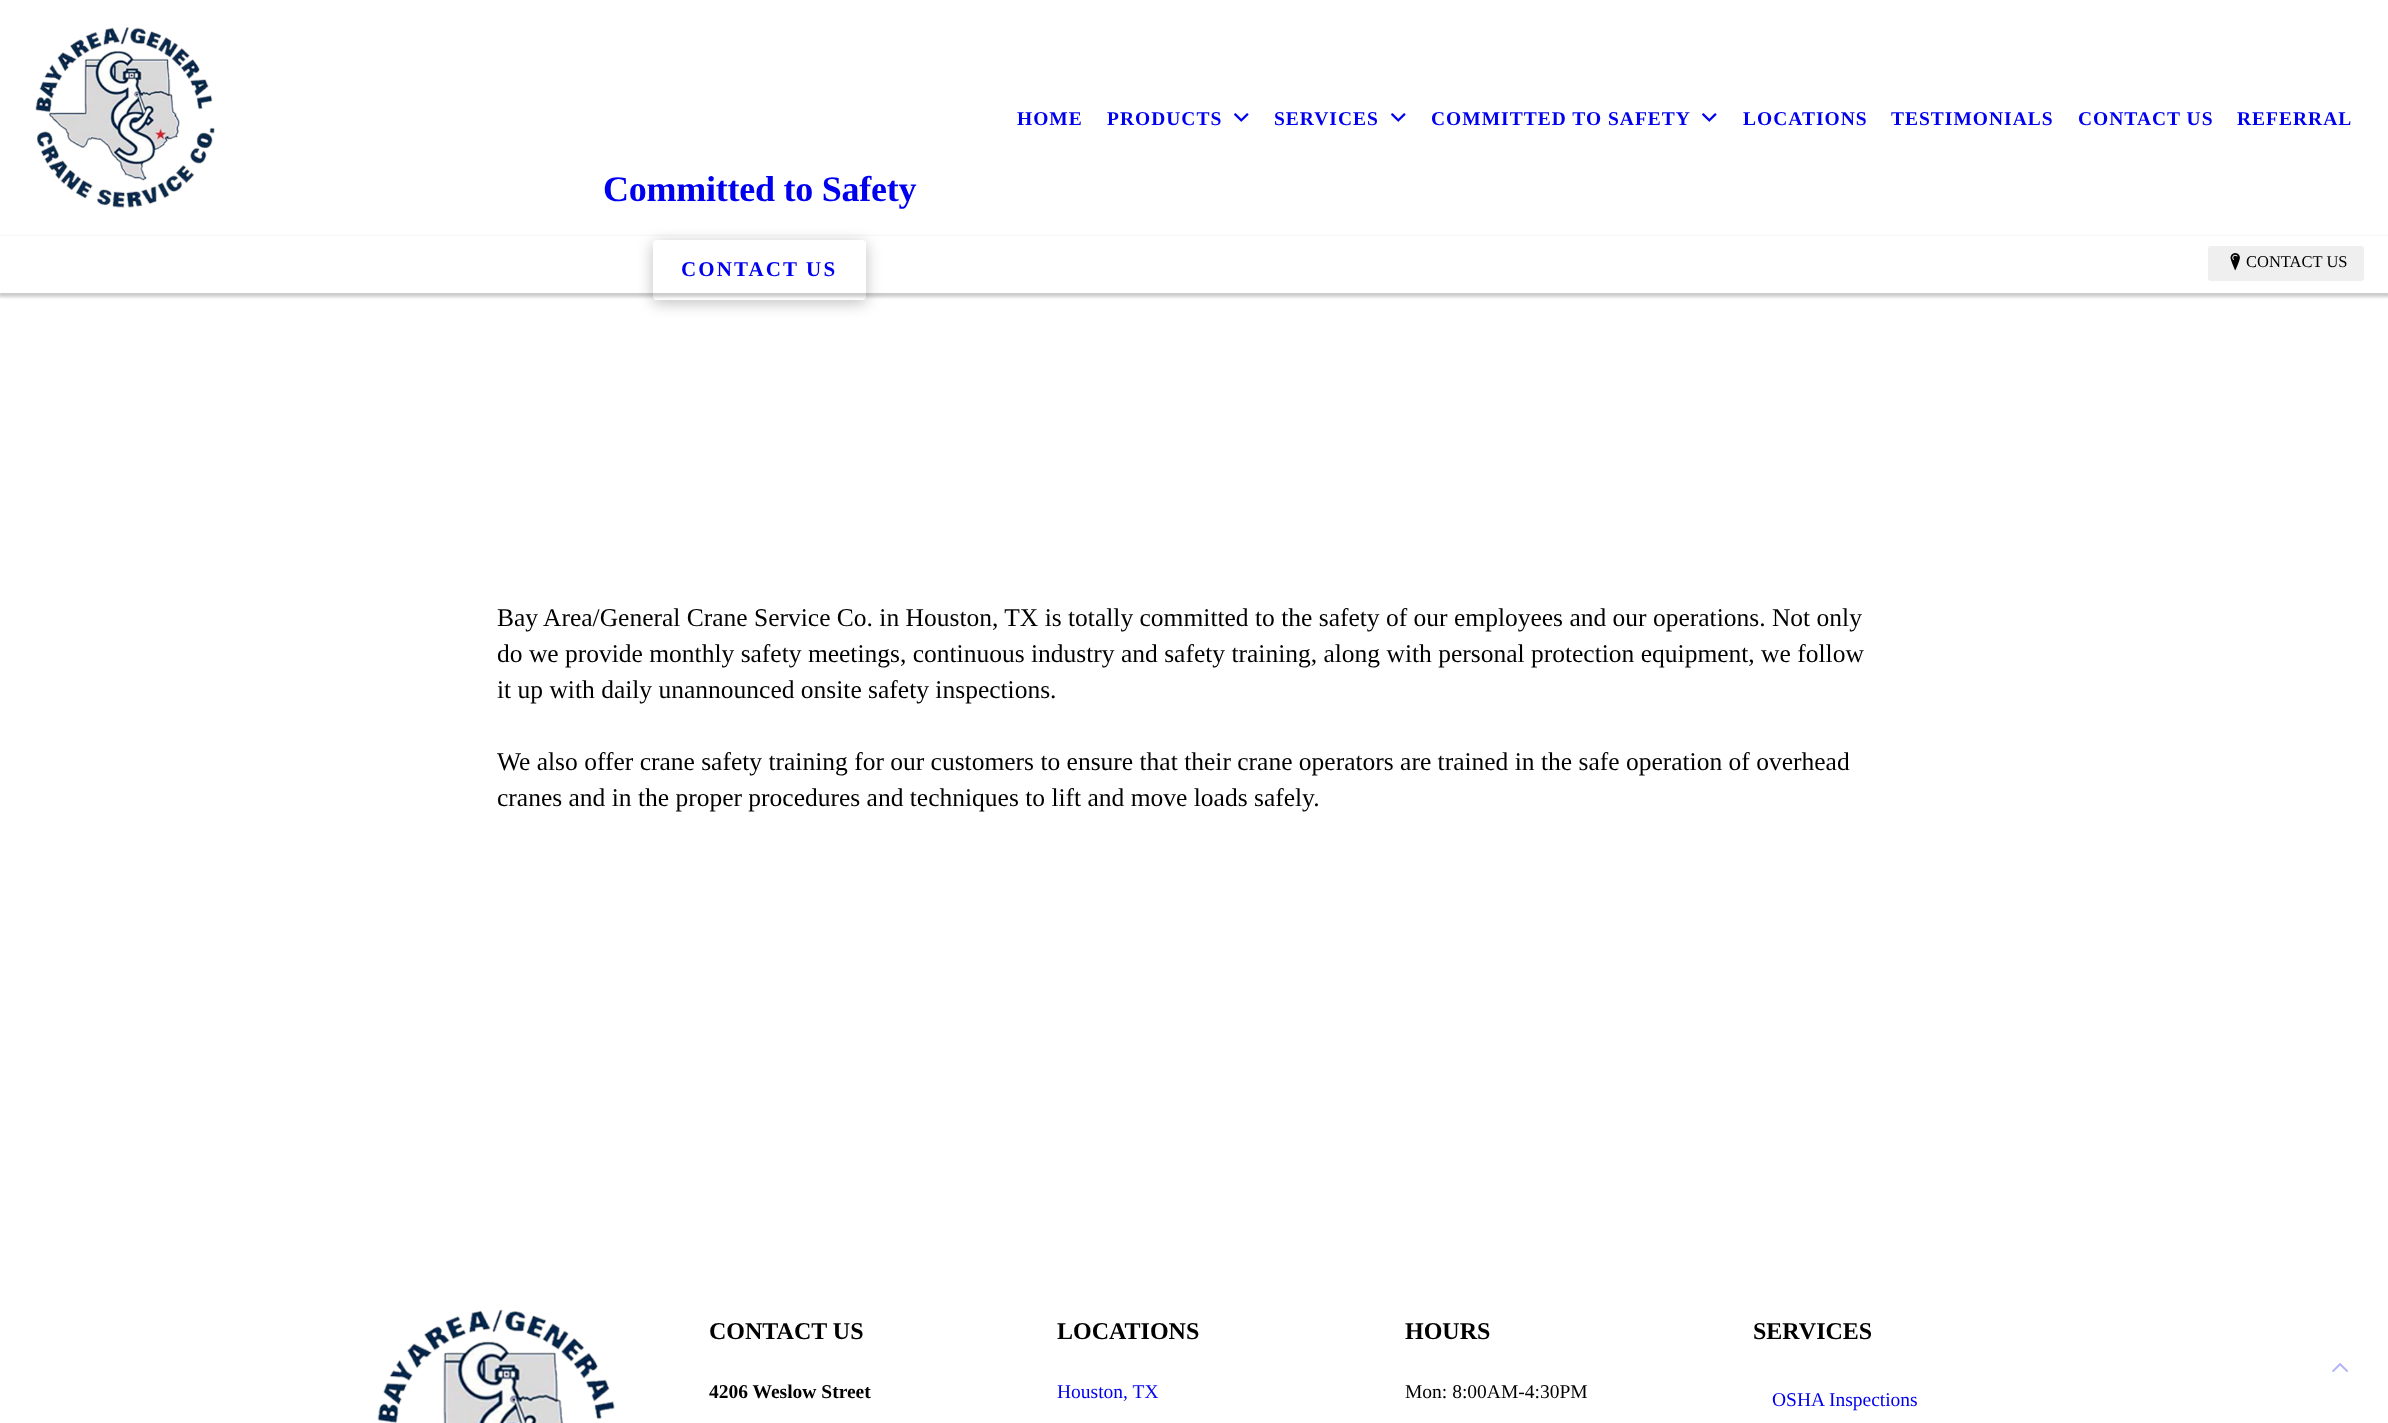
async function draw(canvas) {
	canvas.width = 2388;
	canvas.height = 1423;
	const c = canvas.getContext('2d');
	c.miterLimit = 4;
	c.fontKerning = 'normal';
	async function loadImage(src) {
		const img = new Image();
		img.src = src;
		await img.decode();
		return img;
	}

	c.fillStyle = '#fff';
	c.fillRect(0, 0, 2388, 1423);
	c.drawImage(await loadImage('img1.png'), 35, 27, 180, 181);
	c.letterSpacing = '1px';
	c.font = 'bold 19.5px Liberation Serif';
	c.fillStyle = '#00e';
	c.fillText('HOME', 1017, 125);
	c.fillText('PRODUCTS', 1107, 125);
	c.font = 'bold 18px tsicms';
	c.fillText('-', 1232, 125);
	c.font = 'bold 19.5px Liberation Serif';
	c.fillText('SERVICES', 1274, 125);
	c.font = 'bold 18px tsicms';
	c.fillText('-', 1389, 125);
	c.font = 'bold 19.5px Liberation Serif';
	c.fillText('COMMITTED TO SAFETY', 1431, 125);
	c.font = 'bold 18px tsicms';
	c.fillText('-', 1700, 125);
	c.font = 'bold 19.5px Liberation Serif';
	for (const [text, x, y] of [
		['LOCATIONS', 1743, 125],
		['TESTIMONIALS', 1891, 125],
		['CONTACT US', 2078, 125],
		['REFERRAL', 2237, 125],
	]) {
		c.fillText(text, x, y);
	}
	c.save();
	c.beginPath();
	c.moveTo(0, 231);
	c.lineTo(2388, 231);
	c.lineTo(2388, 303);
	c.lineTo(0, 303);
	c.closePath();
	c.moveTo(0, 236);
	c.lineTo(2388, 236);
	c.lineTo(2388, 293);
	c.lineTo(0, 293);
	c.closePath();
	c.clip('evenodd');
	c.fillStyle = '#00000033';
	c.filter = 'blur(1.5px)';
	c.beginPath();
	c.rect(-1, 237, 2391, 60);
	c.fill();
	c.filter = 'none';
	c.restore();
	c.fillStyle = '#efefef';
	c.beginPath();
	c.roundRect(2208, 246, 156, 35, 3);
	c.fill();
	c.drawImage(await loadImage('img2.png'), 2230, 253, 10, 18);
	c.letterSpacing = '0px';
	c.font = '16.5px Liberation Serif';
	c.fillStyle = '#000';
	c.fillText('CONTACT US', 2246, 267);
	c.letterSpacing = '-0.25px';
	c.font = 'bold 36px Liberation Serif';
	c.fillStyle = '#00e';
	c.fillText('Committed to Safety', 603, 201);
	c.save();
	c.beginPath();
	c.moveTo(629, 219);
	c.lineTo(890, 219);
	c.lineTo(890, 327);
	c.lineTo(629, 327);
	c.closePath();
	c.moveTo(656, 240);
	c.lineTo(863, 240);
	c.bezierCurveTo(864.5, 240, 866, 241.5, 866, 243);
	c.lineTo(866, 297);
	c.bezierCurveTo(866, 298.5, 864.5, 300, 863, 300);
	c.lineTo(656, 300);
	c.bezierCurveTo(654.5, 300, 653, 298.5, 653, 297);
	c.lineTo(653, 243);
	c.bezierCurveTo(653, 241.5, 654.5, 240, 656, 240);
	c.closePath();
	c.clip('evenodd');
	c.fillStyle = '#00000040';
	c.filter = 'blur(7.5px)';
	c.beginPath();
	c.roundRect(653, 243, 213, 60, 3);
	c.fill();
	c.filter = 'none';
	c.restore();
	c.letterSpacing = '2.1px';
	c.font = 'bold 21px Liberation Serif';
	c.fillText('CONTACT US', 681, 276);
	c.letterSpacing = '0px';
	c.font = '25.5px Liberation Serif';
	c.fillStyle = '#000';
	for (const [text, x, y] of [
		['Bay Area/General Crane Service Co. in Houston, TX is totally committed to the safety of our employees and our operations. Not only', 497, 626],
		['do we provide monthly safety meetings, continuous industry and safety training, along with personal protection equipment, we follow', 497, 662],
		['it up with daily unannounced onsite safety inspections.', 497, 698],
		['We also offer crane safety training for our customers to ensure that their crane operators are trained in the safe operation of overhead', 497, 770],
		['cranes and in the proper procedures and techniques to lift and move loads safely.', 497, 806],
	]) {
		c.fillText(text, x, y);
	}
	c.drawImage(await loadImage('img3.png'), 377, 1309, 238, 114);
	c.font = 'bold 24px Liberation Serif';
	c.fillText('CONTACT US', 709, 1339);
	c.font = 'bold 19.5px Liberation Serif';
	c.fillText('4206 Weslow Street', 709, 1398);
	c.font = 'bold 24px Liberation Serif';
	c.fillText('LOCATIONS', 1057, 1339);
	c.font = '19.5px Liberation Serif';
	c.fillStyle = '#00e';
	c.fillText('Houston, TX', 1057, 1398);
	c.font = 'bold 24px Liberation Serif';
	c.fillStyle = '#000';
	c.fillText('HOURS', 1405, 1339);
	c.font = '19.5px Liberation Serif';
	c.fillText('Mon: 8:00AM-4:30PM', 1405, 1398);
	c.font = 'bold 24px Liberation Serif';
	c.fillText('SERVICES', 1753, 1339);
	c.font = '19.5px Liberation Serif';
	c.fillStyle = '#00e';
	c.fillText('OSHA Inspections', 1772, 1406);
	c.font = '21px tsicms';
	c.fillStyle = '#b3b3fa';
	c.fillText('+', 2332, 1376);
}

draw(document.querySelector('canvas'));
